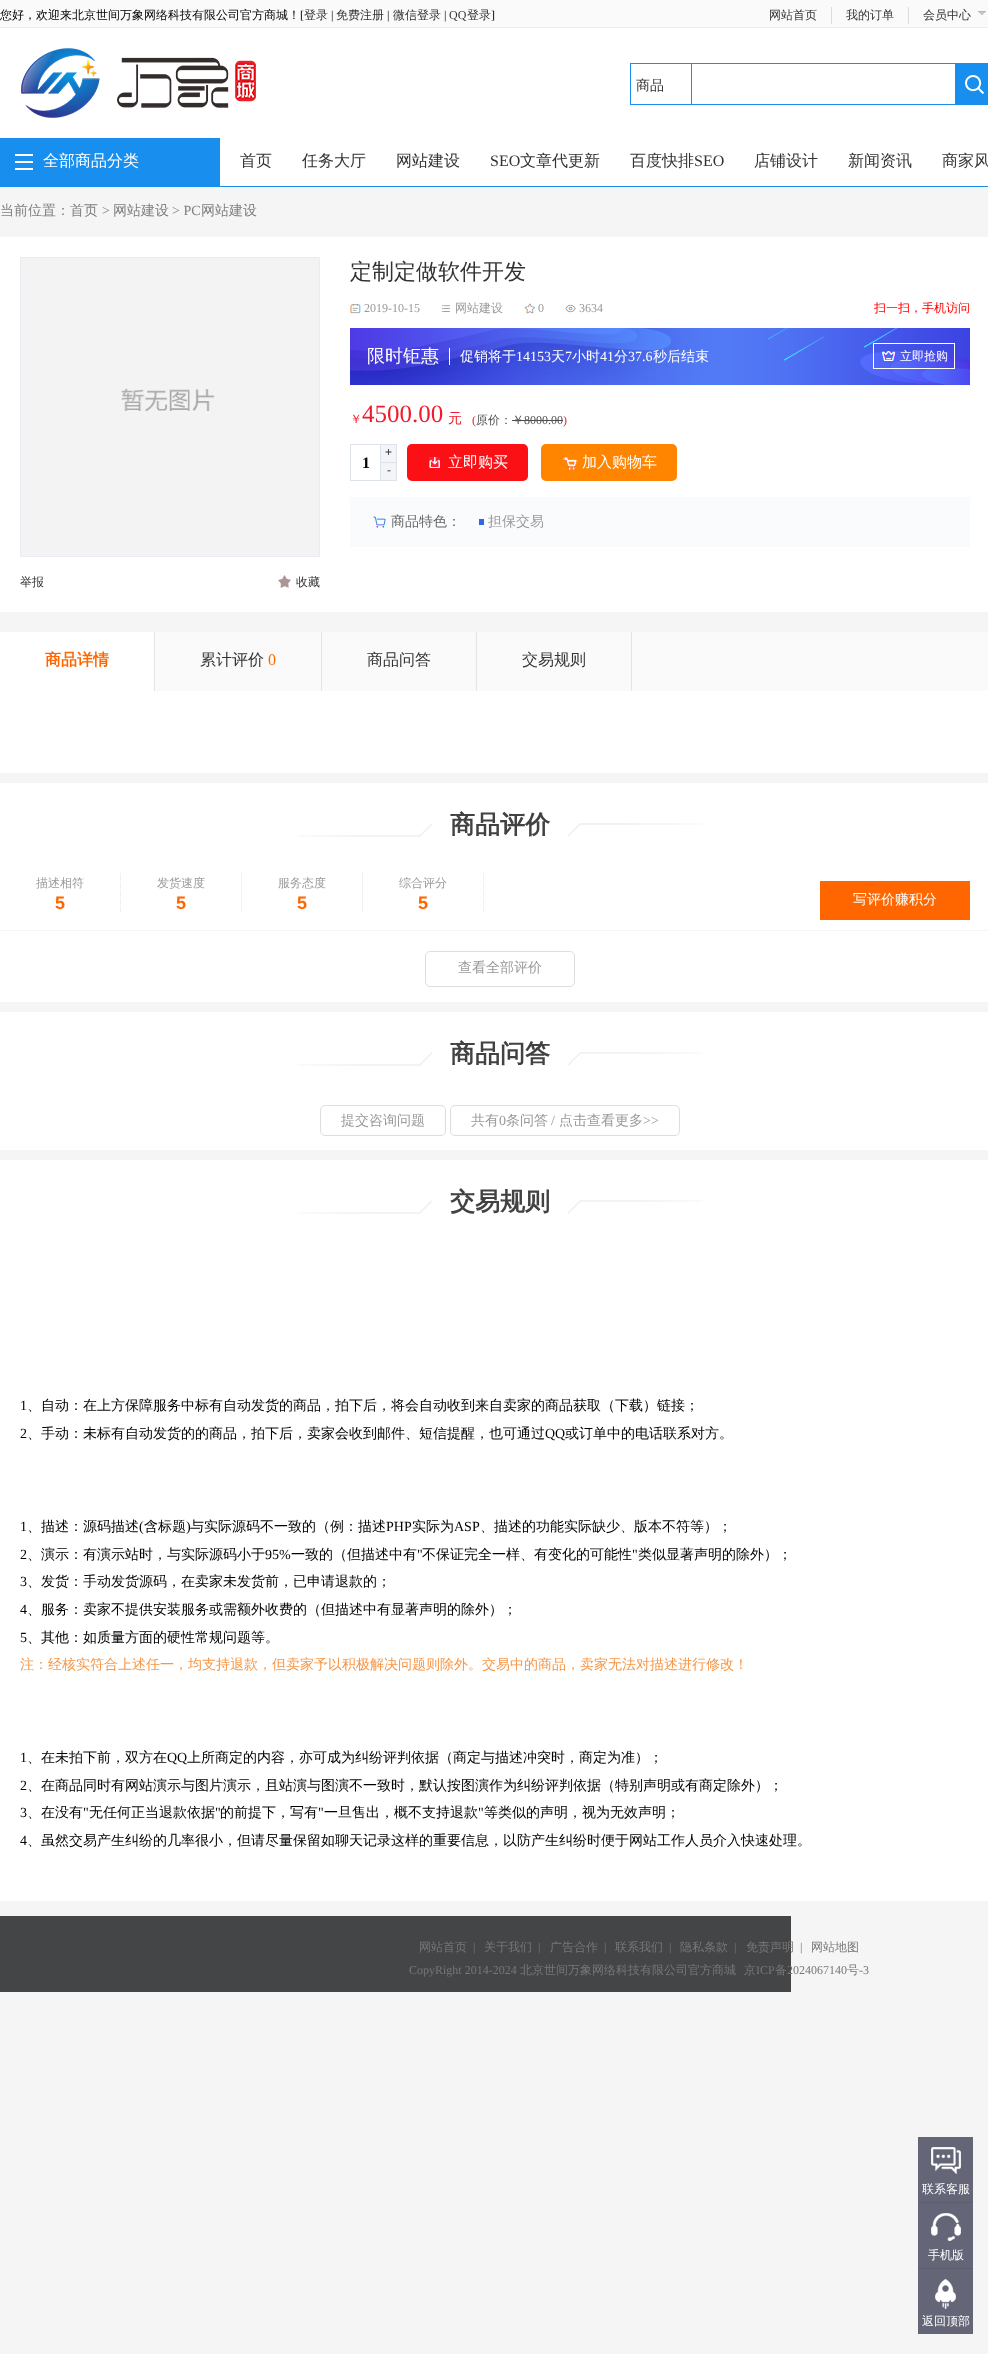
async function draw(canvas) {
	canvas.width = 988;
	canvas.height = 2354;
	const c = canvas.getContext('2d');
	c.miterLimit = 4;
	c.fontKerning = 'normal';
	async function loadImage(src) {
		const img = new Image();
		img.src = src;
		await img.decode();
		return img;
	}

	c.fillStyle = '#f5f5f5';
	c.fillRect(0, 0, 988, 2354);
	c.fillStyle = '#fafafa';
	c.fillRect(0, 0, 988, 27);
	c.fillStyle = '#eee';
	c.fillRect(0, 27, 988, 1);
	c.font = '500 12px WenQuanYi Zen Hei';
	c.fillStyle = '#000';
	c.fillText('您好，欢迎来北京世间万象网络科技有限公司官方商城！', 0, 19);
	c.font = '12px Liberation Serif';
	c.fillText('[', 300, 19);
	c.font = '500 12px WenQuanYi Zen Hei';
	c.fillStyle = '#333';
	c.fillText('登录', 304, 19);
	c.font = '12px Liberation Serif';
	c.fillStyle = '#000';
	c.fillText('|', 331, 19);
	c.font = '500 12px WenQuanYi Zen Hei';
	c.fillStyle = '#333';
	c.fillText('免费注册', 336, 19);
	c.font = '12px Liberation Serif';
	c.fillStyle = '#000';
	c.fillText('|', 387, 19);
	c.font = '500 12px WenQuanYi Zen Hei';
	c.fillStyle = '#333';
	c.fillText('微信登录', 393, 19);
	c.font = '12px Liberation Serif';
	c.fillStyle = '#000';
	c.fillText('|', 444, 19);
	c.fillStyle = '#333';
	c.fillText('QQ', 449, 19);
	c.font = '500 12px WenQuanYi Zen Hei';
	c.fillText('登录', 467, 19);
	c.font = '12px Liberation Serif';
	c.fillStyle = '#000';
	c.fillText(']', 491, 19);
	c.fillStyle = '#ddd';
	c.fillRect(831, 7, 1, 17);
	c.font = '500 12px WenQuanYi Zen Hei';
	c.fillStyle = '#333';
	c.fillText('网站首页', 769, 19);
	c.fillStyle = '#ddd';
	c.fillRect(908, 7, 1, 17);
	c.fillStyle = '#333';
	c.fillText('我的订单', 846, 19);
	c.drawImage(await loadImage('img1.png'), 978, 11, 8, 4);
	c.fillText('会员中心', 923, 19);
	c.fillStyle = '#fff';
	c.fillRect(0, 28, 988, 158);
	c.fillStyle = '#188eee';
	c.fillRect(0, 186, 988, 1);
	c.drawImage(await loadImage('img2.png'), 21, 48, 235, 70);
	c.strokeStyle = '#188eee';
	c.strokeRect(630.5, 63.5, 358, 41);
	c.fillRect(691, 64, 1, 40);
	c.font = '500 14px WenQuanYi Zen Hei';
	c.fillStyle = '#333';
	c.fillText('商品', 636, 90);
	c.drawImage(await loadImage('img3.png'), 955, 64, 33, 40);
	c.fillStyle = '#188eee';
	c.fillRect(0, 138, 220, 48);
	c.drawImage(await loadImage('img4.png'), 15, 154, 18, 16);
	c.font = '500 16px WenQuanYi Zen Hei';
	c.fillStyle = '#fff';
	c.fillText('全部商品分类', 43, 166);
	c.fillStyle = '#333';
	for (const [text, x, y] of [
		['首页', 240, 166],
		['任务大厅', 302, 166],
		['网站建设', 396, 166],
	]) {
		c.fillText(text, x, y);
	}
	c.font = '16px Liberation Serif';
	c.fillText('SEO', 490, 166);
	c.font = '500 16px WenQuanYi Zen Hei';
	c.fillText('文章代更新', 520, 166);
	c.fillText('百度快排', 630, 166);
	c.font = '16px Liberation Serif';
	c.fillText('SEO', 694, 166);
	c.font = '500 16px WenQuanYi Zen Hei';
	for (const [text, x, y] of [
		['店铺设计', 754, 166],
		['新闻资讯', 848, 166],
		['商家风', 942, 166],
	]) {
		c.fillText(text, x, y);
	}
	c.font = '500 14px WenQuanYi Zen Hei';
	c.fillStyle = '#7f7f7f';
	c.fillText('当前位置：首页', 0, 215);
	c.font = '14px Liberation Serif';
	c.fillText('>', 102, 215);
	c.font = '500 14px WenQuanYi Zen Hei';
	c.fillText('网站建设', 113, 215);
	c.font = '14px Liberation Serif';
	c.fillText('> PC', 172, 215);
	c.font = '500 14px WenQuanYi Zen Hei';
	c.fillText('网站建设', 201, 215);
	c.fillStyle = '#fff';
	c.fillRect(0, 237, 988, 375);
	c.font = '500 22px WenQuanYi Zen Hei';
	c.fillStyle = '#333';
	c.fillText('定制定做软件开发', 350, 279);
	c.drawImage(await loadImage('img5.png'), 350, 303, 11, 11);
	c.font = '12px Liberation Serif';
	c.fillStyle = '#999';
	c.fillText('2019-10-15', 364, 312);
	c.drawImage(await loadImage('img6.png'), 441, 305, 9, 7);
	c.font = '500 12px WenQuanYi Zen Hei';
	c.fillText('网站建设', 455, 312);
	c.drawImage(await loadImage('img7.png'), 524, 303, 11, 11);
	c.font = '12px Liberation Serif';
	c.fillText('0', 538, 312);
	c.drawImage(await loadImage('img8.png'), 565, 304, 11, 9);
	c.fillText('3634', 579, 312);
	c.font = '500 12px WenQuanYi Zen Hei';
	c.fillStyle = '#f00';
	c.fillText('扫一扫，手机访问', 874, 312);
	c.drawImage(await loadImage('img9.png'), 350, 328, 620, 57);
	c.font = '500 18px WenQuanYi Zen Hei';
	c.fillStyle = '#fff';
	c.fillText('限时钜惠', 367, 362);
	c.fillRect(449, 348, 1, 17);
	c.font = '500 14px WenQuanYi Zen Hei';
	c.fillText('促销将于', 460, 361);
	c.font = '14px Liberation Serif';
	c.fillText('14153', 516, 361);
	c.font = '500 14px WenQuanYi Zen Hei';
	c.fillText('天', 551, 361);
	c.font = '14px Liberation Serif';
	c.fillText('7', 565, 361);
	c.font = '500 14px WenQuanYi Zen Hei';
	c.fillText('小时', 572, 361);
	c.font = '14px Liberation Serif';
	c.fillText('41', 600, 361);
	c.font = '500 14px WenQuanYi Zen Hei';
	c.fillText('分', 614, 361);
	c.font = '14px Liberation Serif';
	c.fillText('37.6', 628, 361);
	c.font = '500 14px WenQuanYi Zen Hei';
	c.fillText('秒后结束', 653, 361);
	c.drawImage(await loadImage('img10.png'), 882, 351, 14, 10);
	c.strokeStyle = '#fff';
	c.strokeRect(873.5, 343.5, 81, 25);
	c.font = '500 12px WenQuanYi Zen Hei';
	c.fillText('立即抢购', 900, 360);
	c.fillStyle = '#ef1c2b';
	c.fillText('￥', 350, 423);
	c.font = '25px Liberation Serif';
	c.fillText('4500.00', 362, 422);
	c.font = '500 14px WenQuanYi Zen Hei';
	c.fillText('元', 448, 423);
	c.font = '12px Liberation Serif';
	c.fillText('(', 472, 424);
	c.font = '500 12px WenQuanYi Zen Hei';
	c.fillStyle = '#505050';
	c.fillText('原价：￥', 476, 424);
	c.font = '12px Liberation Serif';
	c.fillText('8000.00', 524, 424);
	c.fillRect(512, 420, 51, 1);
	c.fillStyle = '#ef1c2b';
	c.fillText(')', 563, 424);
	c.strokeStyle = '#dee3e9';
	c.strokeRect(350.5, 444.5, 46, 36);
	c.font = 'bold 16px Liberation Serif';
	c.fillStyle = '#000';
	c.fillText('1', 362, 468);
	for (const [x, y, w, h, color] of [
		[380, 445, 1, 35, '#dee3e9'],
		[381, 445, 15, 17, '#f3f4f9'],
		[381, 462, 15, 1, '#dee3e9'],
	]) {
		c.fillStyle = color;
		c.fillRect(x, y, w, h);
	}
	c.font = '12px Liberation Sans';
	c.fillStyle = '#333';
	c.fillText('+', 385, 456);
	c.fillStyle = '#f3f4f8';
	c.fillRect(381, 463, 15, 17);
	c.fillStyle = '#333';
	c.fillText('-', 387, 474);
	c.fillStyle = '#fb1016';
	c.beginPath();
	c.roundRect(407, 444, 121, 37, 5);
	c.fill();
	c.drawImage(await loadImage('img11.png'), 429, 457, 11, 11);
	c.font = '500 15px WenQuanYi Zen Hei';
	c.fillStyle = '#fff';
	c.fillText('立即购买', 448, 467);
	c.fillStyle = '#ff8400';
	c.beginPath();
	c.roundRect(541, 444, 136, 37, 5);
	c.fill();
	c.drawImage(await loadImage('img12.png'), 563, 457, 15, 13);
	c.fillStyle = '#fff';
	c.fillText('加入购物车', 582, 467);
	c.fillStyle = '#fafbfd';
	c.fillRect(350, 497, 620, 50);
	c.drawImage(await loadImage('img13.png'), 373, 516, 13, 12);
	c.font = '500 14px WenQuanYi Zen Hei';
	c.fillStyle = '#666';
	c.fillText('商品特色：', 391, 526);
	c.fillStyle = '#2e68e9';
	c.fillRect(479, 519, 5, 6);
	c.fillStyle = '#999';
	c.fillText('担保交易', 488, 526);
	c.strokeStyle = '#e9ecf3';
	c.strokeRect(20.5, 257.5, 299, 299);
	c.drawImage(await loadImage('img14.png'), 21, 258, 298, 298);
	c.font = '500 12px WenQuanYi Zen Hei';
	c.fillStyle = '#333';
	c.fillText('举报', 20, 586);
	c.drawImage(await loadImage('img15.png'), 278, 575, 13, 13);
	c.fillText('收藏', 296, 586);
	for (const [x, y, w, h, color] of [
		[155, 632, 833, 59, '#fafafa'],
		[0, 632, 154, 59, '#fff'],
		[154, 632, 1, 59, '#e5e5e5'],
	]) {
		c.fillStyle = color;
		c.fillRect(x, y, w, h);
	}
	c.font = 'bold 16px WenQuanYi Zen Hei';
	c.fillStyle = '#f60';
	c.fillText('商品详情', 45, 665);
	c.fillStyle = '#e5e5e5';
	c.fillRect(321, 632, 1, 59);
	c.font = '500 16px WenQuanYi Zen Hei';
	c.fillStyle = '#333';
	c.fillText('累计评价', 200, 665);
	c.font = '16px Liberation Serif';
	c.fillStyle = '#f60';
	c.fillText('0', 268, 665);
	c.fillStyle = '#e5e5e5';
	c.fillRect(476, 632, 1, 59);
	c.font = '500 16px WenQuanYi Zen Hei';
	c.fillStyle = '#333';
	c.fillText('商品问答', 367, 665);
	c.fillStyle = '#e5e5e5';
	c.fillRect(631, 632, 1, 59);
	c.fillStyle = '#333';
	c.fillText('交易规则', 522, 665);
	for (const [x, y, w, h, color] of [
		[0, 691, 988, 82, '#fff'],
		[20, 721, 1, 1, '#f5f4f4'],
		[0, 783, 988, 147, '#fff'],
	]) {
		c.fillStyle = color;
		c.fillRect(x, y, w, h);
	}
	c.drawImage(await loadImage('img16.png'), 298, 823, 404, 14);
	c.font = 'bold 25px WenQuanYi Zen Hei';
	c.fillStyle = '#424242';
	c.fillText('商品评价', 450, 833);
	c.beginPath();
	c.moveTo(120.5, 873);
	c.lineTo(120.5, 913);
	c.strokeStyle = '#e5e5e5';
	c.setLineDash([1, 1]);
	c.stroke();
	c.font = '500 12px WenQuanYi Zen Hei';
	c.fillStyle = '#999';
	c.fillText('描述相符', 36, 887);
	c.font = 'bold 18px Liberation Sans';
	c.fillStyle = '#f60';
	c.fillText('5', 55, 909);
	c.beginPath();
	c.moveTo(241.5, 873);
	c.lineTo(241.5, 913);
	c.stroke();
	c.font = '500 12px WenQuanYi Zen Hei';
	c.fillStyle = '#999';
	c.fillText('发货速度', 157, 887);
	c.font = 'bold 18px Liberation Sans';
	c.fillStyle = '#f60';
	c.fillText('5', 176, 909);
	c.beginPath();
	c.moveTo(362.5, 873);
	c.lineTo(362.5, 913);
	c.stroke();
	c.font = '500 12px WenQuanYi Zen Hei';
	c.fillStyle = '#999';
	c.fillText('服务态度', 278, 887);
	c.font = 'bold 18px Liberation Sans';
	c.fillStyle = '#f60';
	c.fillText('5', 297, 909);
	c.beginPath();
	c.moveTo(483.5, 873);
	c.lineTo(483.5, 913);
	c.stroke();
	c.font = '500 12px WenQuanYi Zen Hei';
	c.fillStyle = '#999';
	c.fillText('综合评分', 399, 887);
	c.font = 'bold 18px Liberation Sans';
	c.fillStyle = '#f60';
	c.fillText('5', 418, 909);
	c.fillRect(820, 881, 150, 39);
	c.font = '500 14px WenQuanYi Zen Hei';
	c.fillStyle = '#fff';
	c.fillText('写评价赚积分', 853, 904);
	c.fillRect(0, 931, 988, 71);
	c.beginPath();
	c.roundRect(425.5, 951.5, 149, 35, 4.5);
	c.strokeStyle = '#dedede';
	c.setLineDash([]);
	c.stroke();
	c.fillStyle = '#999';
	c.fillText('查看全部评价', 458, 972);
	c.fillStyle = '#fff';
	c.fillRect(0, 1012, 988, 138);
	c.drawImage(await loadImage('img16.png'), 298, 1052, 404, 14);
	c.font = 'bold 25px WenQuanYi Zen Hei';
	c.fillStyle = '#424242';
	c.fillText('商品问答', 450, 1062);
	c.beginPath();
	c.roundRect(320.5, 1105.5, 125, 30, 4.5);
	c.stroke();
	c.font = '500 14px WenQuanYi Zen Hei';
	c.fillStyle = '#999';
	c.fillText('提交咨询问题', 341, 1125);
	c.beginPath();
	c.roundRect(450.5, 1105.5, 229, 30, 4.5);
	c.stroke();
	c.fillText('共有', 471, 1125);
	c.font = '14px Liberation Serif';
	c.fillText('0', 499, 1125);
	c.font = '500 14px WenQuanYi Zen Hei';
	c.fillText('条问答', 506, 1125);
	c.font = '14px Liberation Serif';
	c.fillText('/', 551, 1125);
	c.font = '500 14px WenQuanYi Zen Hei';
	c.fillText('点击查看更多', 559, 1125);
	c.font = '14px Liberation Serif';
	c.fillText('>>', 643, 1125);
	c.fillStyle = '#fff';
	c.fillRect(0, 1160, 988, 741);
	c.drawImage(await loadImage('img16.png'), 298, 1200, 404, 14);
	c.font = 'bold 25px WenQuanYi Zen Hei';
	c.fillStyle = '#424242';
	c.fillText('交易规则', 450, 1210);
	c.font = '14px Liberation Serif';
	c.fillStyle = '#000';
	c.fillText('1', 20, 1410);
	c.font = '500 14px WenQuanYi Zen Hei';
	c.fillText('、自动：在上方保障服务中标有自动发货的商品，拍下后，将会自动收到来自卖家的商品获取（下载）链接；', 27, 1410);
	c.font = '14px Liberation Serif';
	c.fillText('2', 20, 1438);
	c.font = '500 14px WenQuanYi Zen Hei';
	c.fillText('、手动：未标有自动发货的的商品，拍下后，卖家会收到邮件、短信提醒，也可通过', 27, 1438);
	c.font = '14px Liberation Serif';
	c.fillText('QQ', 545, 1438);
	c.font = '500 14px WenQuanYi Zen Hei';
	c.fillText('或订单中的电话联系对方。', 565, 1438);
	c.font = '14px Liberation Serif';
	c.fillText('1', 20, 1531);
	c.font = '500 14px WenQuanYi Zen Hei';
	c.fillText('、描述：源码描述', 27, 1531);
	c.font = '14px Liberation Serif';
	c.fillText('(', 139, 1531);
	c.font = '500 14px WenQuanYi Zen Hei';
	c.fillText('含标题', 144, 1531);
	c.font = '14px Liberation Serif';
	c.fillText(')', 186, 1531);
	c.font = '500 14px WenQuanYi Zen Hei';
	c.fillText('与实际源码不一致的（例：描述', 190, 1531);
	c.font = '14px Liberation Serif';
	c.fillText('PHP', 386, 1531);
	c.font = '500 14px WenQuanYi Zen Hei';
	c.fillText('实际为', 412, 1531);
	c.font = '14px Liberation Serif';
	c.fillText('ASP', 454, 1531);
	c.font = '500 14px WenQuanYi Zen Hei';
	c.fillText('、描述的功能实际缺少、版本不符等）；', 480, 1531);
	c.font = '14px Liberation Serif';
	c.fillText('2', 20, 1559);
	c.font = '500 14px WenQuanYi Zen Hei';
	c.fillText('、演示：有演示站时，与实际源码小于', 27, 1559);
	c.font = '14px Liberation Serif';
	c.fillText('95%', 265, 1559);
	c.font = '500 14px WenQuanYi Zen Hei';
	c.fillText('一致的（但描述中有', 291, 1559);
	c.font = '14px Liberation Serif';
	c.fillText('"', 417, 1559);
	c.font = '500 14px WenQuanYi Zen Hei';
	c.fillText('不保证完全一样、有变化的可能性', 422, 1559);
	c.font = '14px Liberation Serif';
	c.fillText('"', 632, 1559);
	c.font = '500 14px WenQuanYi Zen Hei';
	c.fillText('类似显著声明的除外）；', 638, 1559);
	c.font = '14px Liberation Serif';
	c.fillText('3', 20, 1586);
	c.font = '500 14px WenQuanYi Zen Hei';
	c.fillText('、发货：手动发货源码，在卖家未发货前，已申请退款的；', 27, 1586);
	c.font = '14px Liberation Serif';
	c.fillText('4', 20, 1614);
	c.font = '500 14px WenQuanYi Zen Hei';
	c.fillText('、服务：卖家不提供安装服务或需额外收费的（但描述中有显著声明的除外）；', 27, 1614);
	c.font = '14px Liberation Serif';
	c.fillText('5', 20, 1642);
	c.font = '500 14px WenQuanYi Zen Hei';
	c.fillText('、其他：如质量方面的硬性常规问题等。', 27, 1642);
	c.fillStyle = '#f79646';
	c.fillText('注：经核实符合上述任一，均支持退款，但卖家予以积极解决问题则除外。交易中的商品，卖家无法对描述进行修改！', 20, 1669);
	c.font = '14px Liberation Serif';
	c.fillStyle = '#000';
	c.fillText('1', 20, 1762);
	c.font = '500 14px WenQuanYi Zen Hei';
	c.fillText('、在未拍下前，双方在', 27, 1762);
	c.font = '14px Liberation Serif';
	c.fillText('QQ', 167, 1762);
	c.font = '500 14px WenQuanYi Zen Hei';
	c.fillText('上所商定的内容，亦可成为纠纷评判依据（商定与描述冲突时，商定为准）；', 187, 1762);
	c.font = '14px Liberation Serif';
	c.fillText('2', 20, 1790);
	c.font = '500 14px WenQuanYi Zen Hei';
	c.fillText('、在商品同时有网站演示与图片演示，且站演与图演不一致时，默认按图演作为纠纷评判依据（特别声明或有商定除外）；', 27, 1790);
	c.font = '14px Liberation Serif';
	c.fillText('3', 20, 1817);
	c.font = '500 14px WenQuanYi Zen Hei';
	c.fillText('、在没有', 27, 1817);
	c.font = '14px Liberation Serif';
	c.fillText('"', 83, 1817);
	c.font = '500 14px WenQuanYi Zen Hei';
	c.fillText('无任何正当退款依据', 89, 1817);
	c.font = '14px Liberation Serif';
	c.fillText('"', 215, 1817);
	c.font = '500 14px WenQuanYi Zen Hei';
	c.fillText('的前提下，写有', 220, 1817);
	c.font = '14px Liberation Serif';
	c.fillText('"', 318, 1817);
	c.font = '500 14px WenQuanYi Zen Hei';
	c.fillText('一旦售出，概不支持退款', 324, 1817);
	c.font = '14px Liberation Serif';
	c.fillText('"', 478, 1817);
	c.font = '500 14px WenQuanYi Zen Hei';
	c.fillText('等类似的声明，视为无效声明；', 484, 1817);
	c.font = '14px Liberation Serif';
	c.fillText('4', 20, 1845);
	c.font = '500 14px WenQuanYi Zen Hei';
	c.fillText('、虽然交易产生纠纷的几率很小，但请尽量保留如聊天记录这样的重要信息，以防产生纠纷时便于网站工作人员介入快速处理。', 27, 1845);
	c.fillStyle = '#444546';
	c.fillRect(0, 1916, 791, 76);
	c.font = '500 12px WenQuanYi Zen Hei';
	c.fillStyle = '#777';
	c.fillText('网站首页', 419, 1951);
	c.font = '12px Liberation Serif';
	c.fillText('|', 473, 1951);
	c.font = '500 12px WenQuanYi Zen Hei';
	c.fillText('关于我们', 484, 1951);
	c.font = '12px Liberation Serif';
	c.fillText('|', 538, 1951);
	c.font = '500 12px WenQuanYi Zen Hei';
	c.fillText('广告合作', 550, 1951);
	c.font = '12px Liberation Serif';
	c.fillText('|', 604, 1951);
	c.font = '500 12px WenQuanYi Zen Hei';
	c.fillText('联系我们', 615, 1951);
	c.font = '12px Liberation Serif';
	c.fillText('|', 669, 1951);
	c.font = '500 12px WenQuanYi Zen Hei';
	c.fillText('隐私条款', 680, 1951);
	c.font = '12px Liberation Serif';
	c.fillText('|', 734, 1951);
	c.font = '500 12px WenQuanYi Zen Hei';
	c.fillText('免责声明', 746, 1951);
	c.font = '12px Liberation Serif';
	c.fillText('|', 800, 1951);
	c.font = '500 12px WenQuanYi Zen Hei';
	c.fillText('网站地图', 811, 1951);
	c.font = '12px Liberation Serif';
	c.fillText('CopyRight 2014-2024', 409, 1974);
	c.font = '500 12px WenQuanYi Zen Hei';
	c.fillText('北京世间万象网络科技有限公司官方商城', 520, 1974);
	c.fillText('京', 744, 1974);
	c.font = '12px Liberation Serif';
	c.fillText('ICP', 756, 1974);
	c.font = '500 12px WenQuanYi Zen Hei';
	c.fillText('备', 775, 1974);
	c.font = '12px Liberation Serif';
	c.fillText('2024067140', 787, 1974);
	c.font = '500 12px WenQuanYi Zen Hei';
	c.fillText('号', 847, 1974);
	c.font = '12px Liberation Serif';
	c.fillText('-3', 859, 1974);
	c.fillStyle = '#646577';
	c.fillRect(918, 2137, 55, 65);
	c.fillStyle = '#5c5d6e';
	c.fillRect(918, 2202, 55, 1);
	c.drawImage(await loadImage('img17.png'), 931, 2147, 30, 27);
	c.font = '500 12px WenQuanYi Zen Hei';
	c.fillStyle = '#fff';
	c.fillText('联系客服', 922, 2193);
	c.fillStyle = '#646577';
	c.fillRect(918, 2203, 55, 65);
	c.fillStyle = '#5c5d6e';
	c.fillRect(918, 2268, 55, 1);
	c.drawImage(await loadImage('img18.png'), 931, 2213, 30, 28);
	c.fillStyle = '#fff';
	c.fillText('手机版', 928, 2259);
	c.fillStyle = '#646577';
	c.fillRect(918, 2269, 55, 65);
	c.drawImage(await loadImage('img19.png'), 935, 2279, 21, 30);
	c.fillStyle = '#fff';
	c.fillText('返回顶部', 922, 2325);
}

draw(document.querySelector('canvas'));
